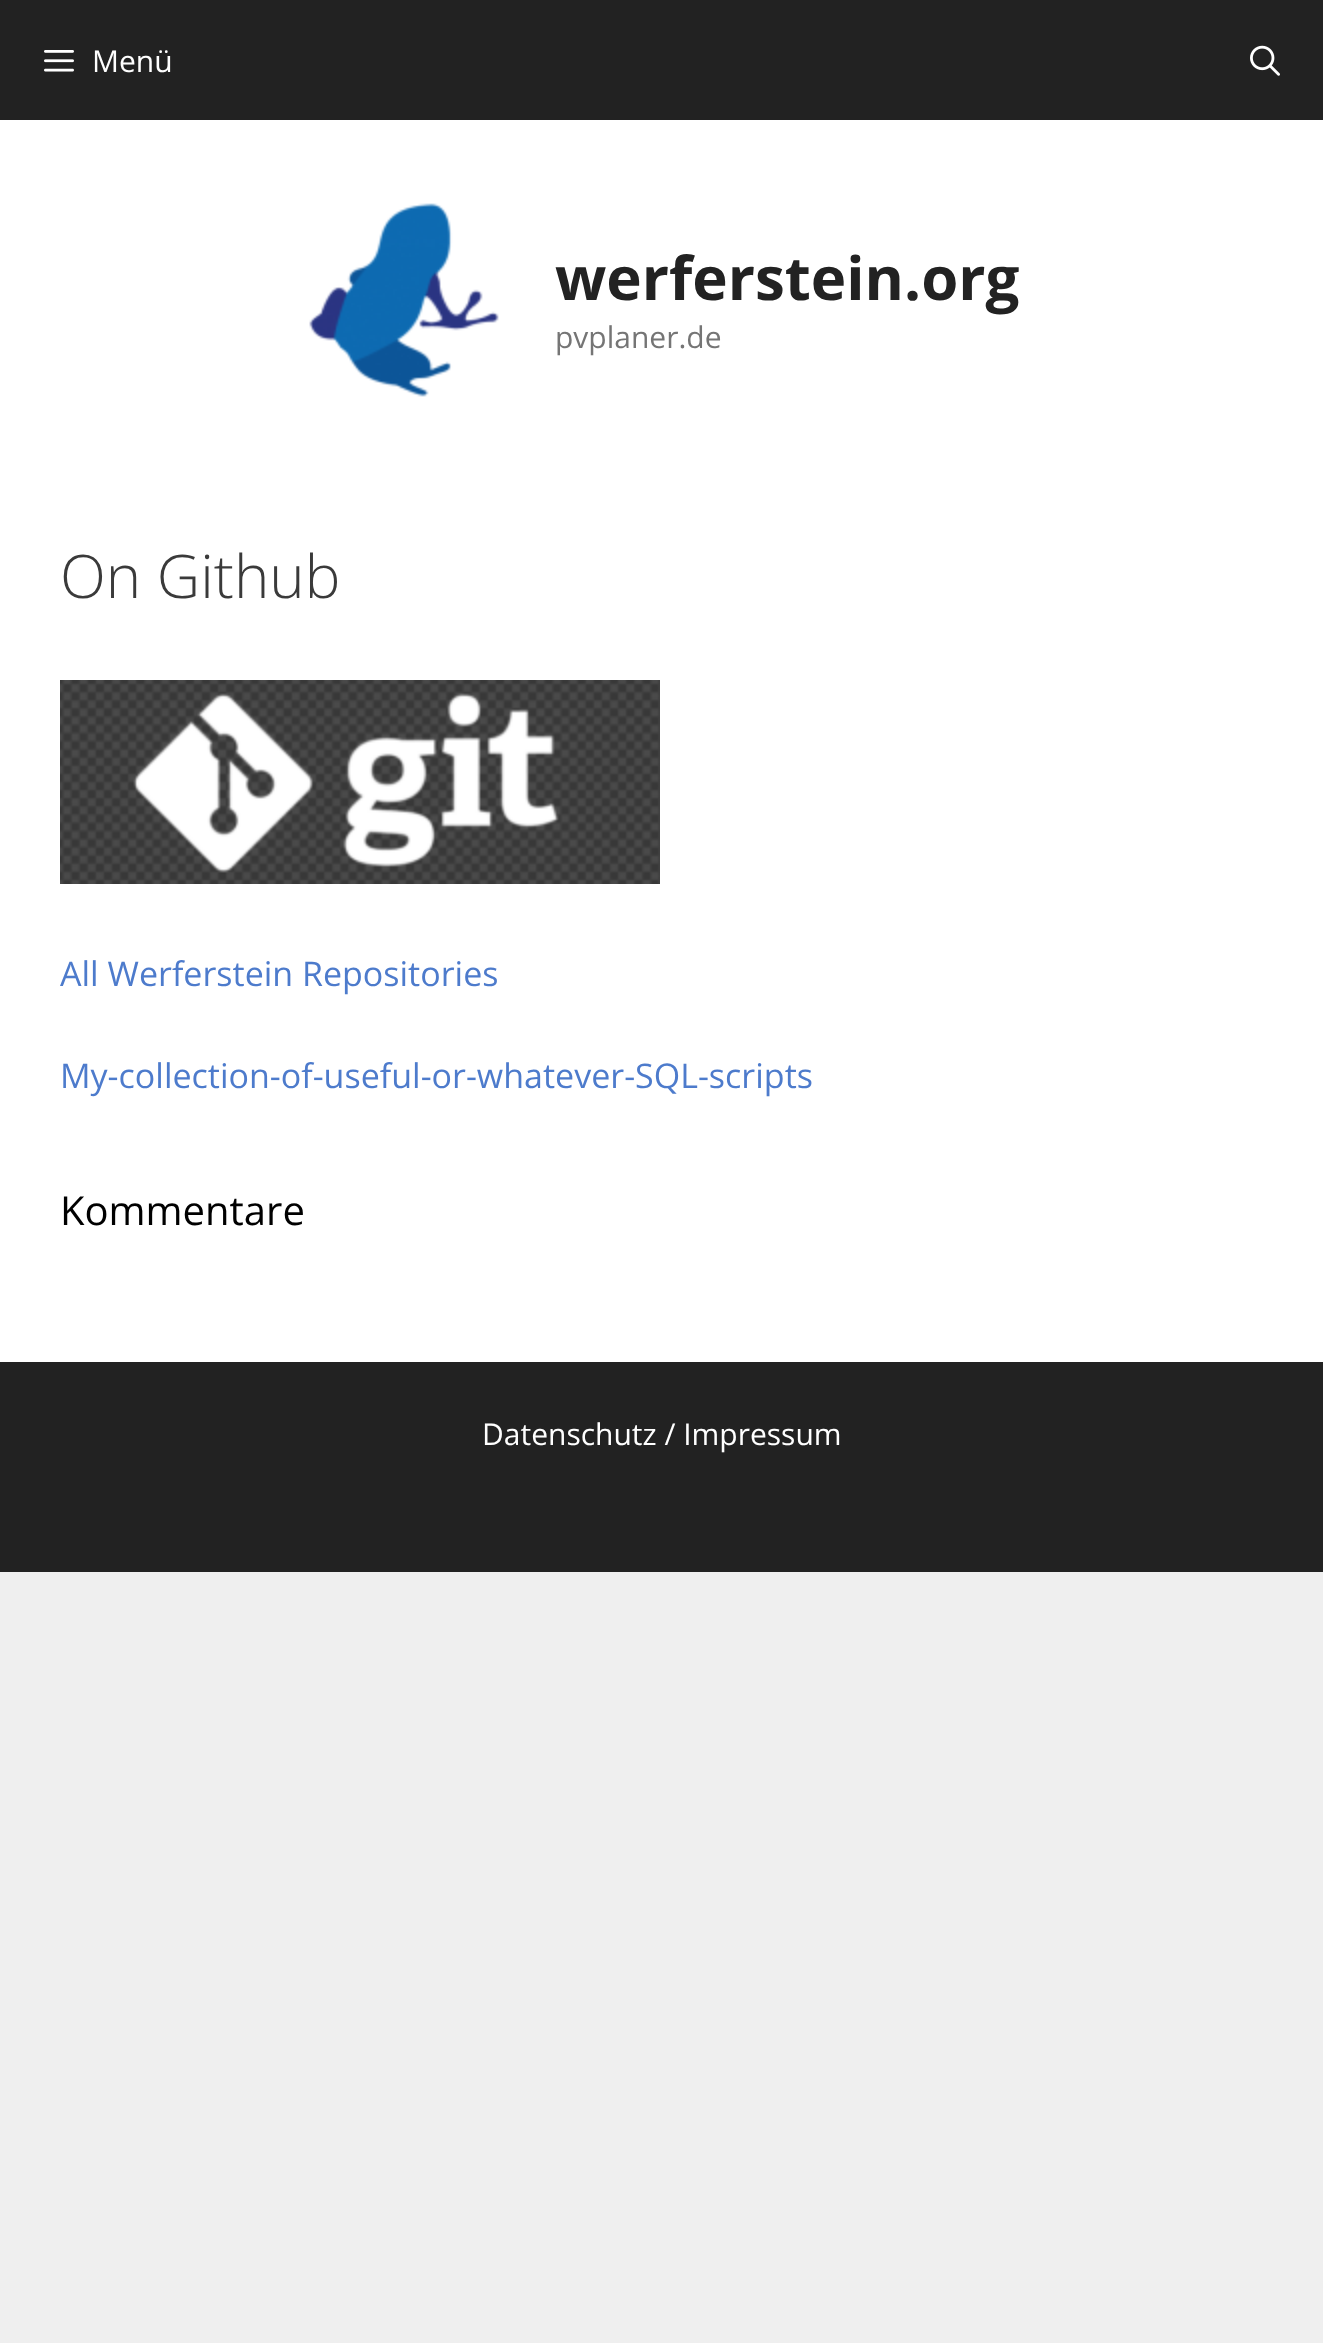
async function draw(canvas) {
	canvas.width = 1323;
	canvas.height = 2343;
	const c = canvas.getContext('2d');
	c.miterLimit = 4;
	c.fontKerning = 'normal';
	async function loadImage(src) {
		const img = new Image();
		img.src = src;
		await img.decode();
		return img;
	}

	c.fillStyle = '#efefef';
	c.fillRect(0, 0, 1323, 2343);
	c.fillStyle = '#222';
	c.fillRect(0, 0, 1323, 120);
	c.drawImage(await loadImage('img1.png'), 44, 50, 30, 22);
	c.font = '30px Open Sans';
	c.fillStyle = '#fff';
	c.fillText('Menü', 92, 72);
	c.drawImage(await loadImage('img2.png'), 1250, 45, 30, 31);
	c.fillRect(0, 120, 1323, 1242);
	c.drawImage(await loadImage('img3.png'), 309, 203, 190, 194);
	c.font = 'bold 60px Open Sans';
	c.fillStyle = '#222';
	c.fillText('werferstein.org', 555, 300);
	c.font = '30px Open Sans';
	c.fillStyle = '#757575';
	c.fillText('pvplaner.de', 555, 348);
	c.font = '300 60px Open Sans';
	c.fillStyle = '#3a3a3a';
	c.fillText('On Github', 60, 598);
	c.drawImage(await loadImage('img4.png'), 60, 680, 600, 204);
	c.font = '34px Open Sans';
	c.fillStyle = '#4d7bcc';
	c.fillText('All Werferstein Repositories', 60, 986);
	c.fillText('My-collection-of-useful-or-whatever-SQL-scripts', 60, 1088);
	c.font = '40px Open Sans';
	c.fillStyle = '#000';
	c.fillText('Kommentare', 60, 1225);
	c.fillStyle = '#222';
	c.fillRect(0, 1362, 1323, 210);
	c.font = '30px Open Sans';
	c.fillStyle = '#fff';
	c.fillText('Datenschutz / Impressum', 482, 1445);
}

draw(document.querySelector('canvas'));
